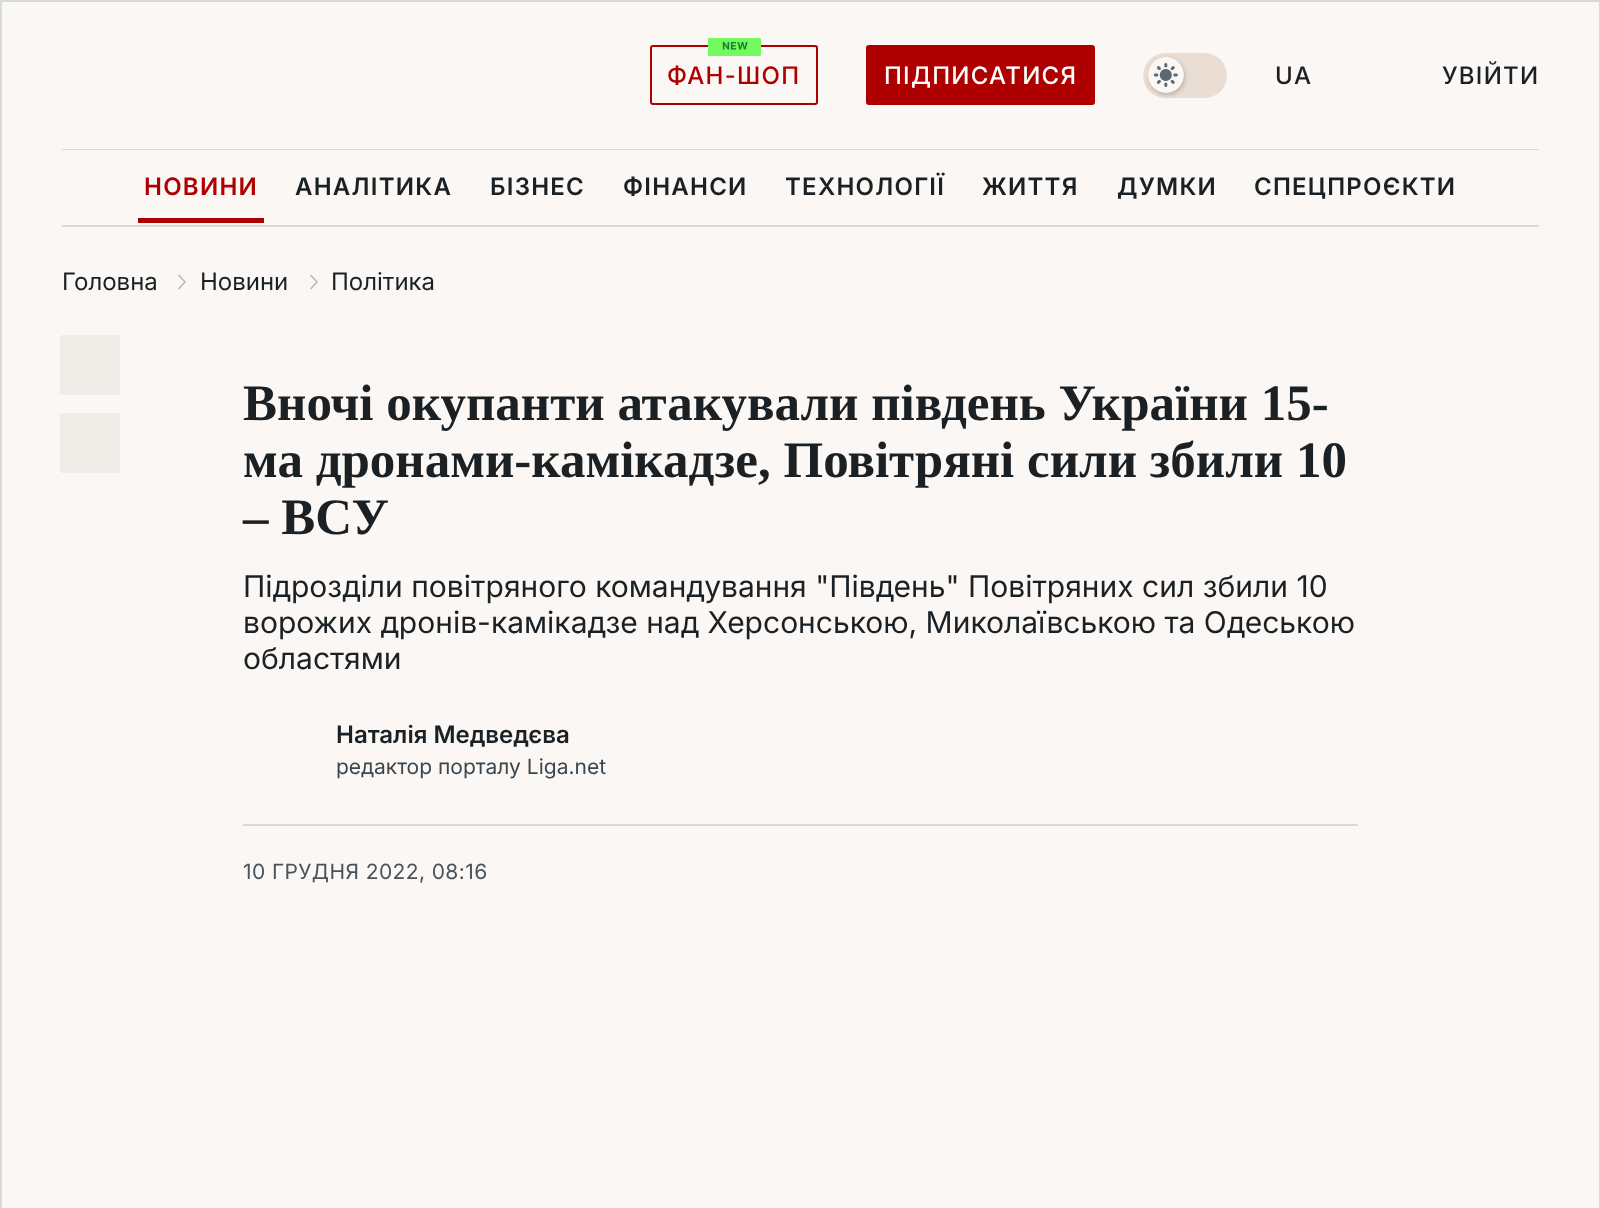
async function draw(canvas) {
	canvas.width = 1600;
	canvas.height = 1208;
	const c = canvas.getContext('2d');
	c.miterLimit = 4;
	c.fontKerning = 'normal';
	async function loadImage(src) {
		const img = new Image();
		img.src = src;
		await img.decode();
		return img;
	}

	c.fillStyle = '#faf7f4';
	c.fillRect(0, 0, 1600, 1208);
	for (const [x, y, w, h, color] of [
		[0, 0, 1600, 2, '#d5dadd'],
		[1599, 0, 1, 1208, '#d5dadd'],
		[0, 0, 2, 1208, '#d5dadd'],
		[62, 149, 1477, 1, '#d5dadd'],
	]) {
		c.fillStyle = color;
		c.fillRect(x, y, w, h);
	}
	c.beginPath();
	c.roundRect(651, 46, 166, 58, 2);
	c.strokeStyle = '#ae0000';
	c.lineWidth = 2;
	c.stroke();
	c.drawImage(await loadImage('img1.png'), 708, 38, 53, 18);
	c.letterSpacing = '1.25px';
	c.font = '500 24px Inter';
	c.fillStyle = '#ae0000';
	c.fillText('ФАН-ШОП', 667, 84);
	c.beginPath();
	c.roundRect(866, 45, 229, 60, 3);
	c.fill();
	c.fillStyle = '#fff';
	c.fillText('ПІДПИСАТИСЯ', 884, 84);
	c.fillStyle = '#eaded4';
	c.beginPath();
	c.roundRect(1143, 53, 84, 45, 22.5);
	c.fill();
	c.fillStyle = '#00000033';
	c.filter = 'blur(2px)';
	c.beginPath();
	c.roundRect(1149, 59, 36, 36, 18);
	c.fill();
	c.filter = 'none';
	c.drawImage(await loadImage('img2.png'), 1148, 57, 36, 36);
	c.fillStyle = '#1a2024';
	c.fillText('UA', 1275, 84);
	c.fillText('УВІЙТИ', 1442, 84);
	c.fillStyle = '#d5dadd';
	c.fillRect(62, 225, 1477, 2);
	c.font = '600 24px Inter';
	c.fillStyle = '#ae0000';
	c.fillText('НОВИНИ', 144, 195);
	c.fillRect(138, 218, 126, 5);
	c.fillStyle = '#1a2024';
	for (const [text, x, y] of [
		['АНАЛІТИКА', 295, 195],
		['БІЗНЕС', 490, 195],
		['ФІНАНСИ', 623, 195],
		['ТЕХНОЛОГІЇ', 785, 195],
		['ЖИТТЯ', 982, 195],
		['ДУМКИ', 1117, 195],
		['СПЕЦПРОЄКТИ', 1254, 195],
	]) {
		c.fillText(text, x, y);
	}
	c.letterSpacing = '0px';
	c.font = '24px Inter';
	c.fillText('Головна', 62, 290);
	c.beginPath();
	c.moveTo(178.5, 275);
	c.lineTo(185, 282);
	c.lineTo(178.5, 289);
	c.strokeStyle = '#b0babf';
	c.lineWidth = 1.5;
	c.stroke();
	c.fillText('Новини', 200, 290);
	c.beginPath();
	c.moveTo(310.5, 275);
	c.lineTo(317, 282);
	c.lineTo(310.5, 289);
	c.stroke();
	c.fillText('Політика', 331, 290);
	c.fillStyle = '#efebe6';
	c.beginPath();
	c.roundRect(60, 335, 60, 60, 3);
	c.fill();
	c.beginPath();
	c.roundRect(60, 413, 60, 60, 3);
	c.fill();
	c.font = 'bold 51px Tinos';
	c.fillStyle = '#1a2024';
	for (const [text, x, y] of [
		['Вночі окупанти атакували південь України 15-', 243, 420],
		['ма дронами-камікадзе, Повітряні сили збили 10', 243, 477],
		['– ВСУ', 243, 534],
	]) {
		c.fillText(text, x, y);
	}
	c.font = '30px Inter';
	for (const [text, x, y] of [
		['Підрозділи повітряного командування "Південь" Повітряних сил збили 10', 243, 597],
		['ворожих дронів-камікадзе над Херсонською, Миколаївською та Одеською', 243, 633],
		['областями', 243, 669],
	]) {
		c.fillText(text, x, y);
	}
	c.font = '600 24px Inter';
	c.fillText('Наталія Медведєва', 336, 743);
	c.font = '21px Inter';
	c.fillStyle = '#3c464e';
	c.fillText('редактор порталу Liga.net', 336, 774);
	c.fillStyle = '#d5dadd';
	c.fillRect(243, 824, 1115, 2);
	c.letterSpacing = '0.4px';
	c.fillStyle = '#48535b';
	c.fillText('10 ГРУДНЯ 2022, 08:16', 243, 879);
}

draw(document.querySelector('canvas'));
